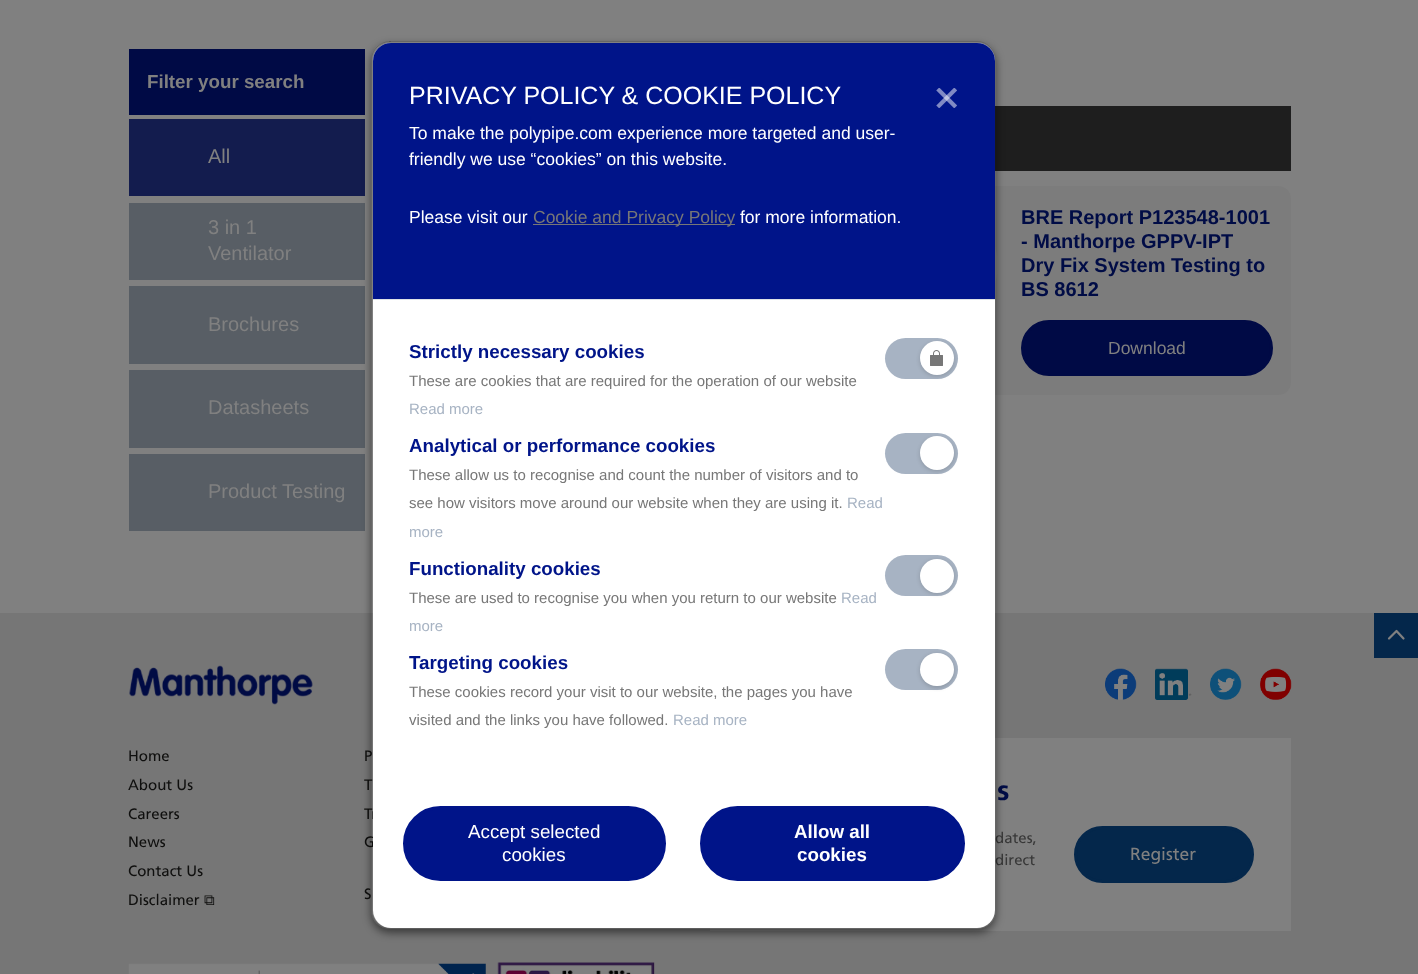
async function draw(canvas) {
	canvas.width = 1418;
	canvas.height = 974;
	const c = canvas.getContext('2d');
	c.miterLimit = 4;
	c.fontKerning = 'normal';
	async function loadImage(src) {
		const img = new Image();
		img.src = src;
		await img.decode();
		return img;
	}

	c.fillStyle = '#808080';
	c.fillRect(0, 0, 1418, 974);
	c.fillStyle = '#000a45';
	c.fillRect(129, 49, 236, 66);
	c.font = 'bold 18.75px Liberation Sans';
	c.fillStyle = '#808080';
	c.fillText('Filter your search', 147, 88);
	c.fillStyle = '#131c4e';
	c.fillRect(129, 119, 236, 77);
	c.font = '20px Liberation Sans';
	c.fillStyle = '#808080';
	c.fillText('All', 208, 163);
	c.fillStyle = '#585e65';
	c.fillRect(129, 203, 236, 77);
	c.fillStyle = '#808080';
	c.fillText('3 in 1', 208, 234);
	c.fillText('Ventilator', 208, 260);
	c.fillStyle = '#585e65';
	c.fillRect(129, 286, 236, 78);
	c.fillStyle = '#808080';
	c.fillText('Brochures', 208, 331);
	c.fillStyle = '#585e65';
	c.fillRect(129, 370, 236, 78);
	c.fillStyle = '#808080';
	c.fillText('Datasheets', 208, 414);
	c.fillStyle = '#585e65';
	c.fillRect(129, 454, 236, 77);
	c.fillStyle = '#808080';
	c.fillText('Product Testing', 208, 498);
	c.fillStyle = '#1e1e1e';
	c.fillRect(995, 106, 296, 65);
	c.fillStyle = '#7c7c7c';
	c.beginPath();
	c.roundRect(859, 186, 432, 209, 13);
	c.fill();
	c.fillStyle = '#808080';
	c.beginPath();
	c.arc(938, 265, 60, 0, 2 * Math.PI);
	c.fill();
	c.font = 'bold 20px Liberation Sans';
	c.fillStyle = '#000c46';
	for (const [text, x, y] of [
		['BRE Report P123548-1001', 1021, 224],
		['- Manthorpe GPPV-IPT', 1021, 248],
		['Dry Fix System Testing to', 1021, 272],
		['BS 8612', 1021, 296],
	]) {
		c.fillText(text, x, y);
	}
	c.fillStyle = '#000a45';
	c.beginPath();
	c.roundRect(1022.5, 321.5, 249, 53, 26.5);
	c.fill();
	c.strokeStyle = '#000a45';
	c.lineWidth = 3;
	c.stroke();
	c.font = '17.5px Liberation Sans';
	c.fillStyle = '#808080';
	c.fillText('Download', 1108, 354);
	c.fillStyle = '#767676';
	c.fillRect(0, 613, 1418, 361);
	c.fillStyle = '#04274b';
	c.fillRect(1374, 613, 44, 45);
	c.beginPath();
	c.moveTo(1389, 638.5);
	c.lineTo(1396.5, 631);
	c.lineTo(1403.5, 638.5);
	c.strokeStyle = '#808080';
	c.lineWidth = 2.2;
	c.lineCap = 'round';
	c.lineJoin = 'round';
	c.stroke();
	c.drawImage(await loadImage('img1.png'), 129, 665, 184, 40);
	c.font = '15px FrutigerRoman';
	c.fillStyle = '#0f0f0e';
	for (const [text, x, y] of [
		['Home', 128, 761],
		['About Us', 128, 790],
		['Careers', 128, 819],
		['News', 128, 847],
		['Contact Us', 128, 876],
		['Disclaimer', 128, 905],
	]) {
		c.fillText(text, x, y);
	}
	c.font = '15px FreeSerif';
	c.fillText('⧉', 204, 905);
	c.font = '15px FrutigerRoman';
	for (const [text, x, y] of [
		['P', 364, 761],
		['T', 364, 790],
		['Tr', 364, 819],
		['G', 364, 847],
		['S', 364, 899],
	]) {
		c.fillText(text, x, y);
	}
	c.drawImage(await loadImage('img2.png'), 1105, 668, 32, 32);
	c.drawImage(await loadImage('img3.png'), 1155, 668, 37, 32);
	c.drawImage(await loadImage('img4.png'), 1210, 668, 32, 32);
	c.drawImage(await loadImage('img5.png'), 1260, 668, 32, 32);
	c.fillStyle = '#808080';
	c.fillRect(710, 738, 581, 193);
	c.font = 'bold 28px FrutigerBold';
	c.fillStyle = '#000c46';
	c.fillText('s', 997, 800);
	c.font = '15px FrutigerRoman';
	c.fillStyle = '#383838';
	c.fillText('dates,', 995, 843);
	c.fillText('direct', 995, 865);
	c.fillStyle = '#04274b';
	c.beginPath();
	c.roundRect(1075.5, 827.5, 177, 54, 27);
	c.fill();
	c.strokeStyle = '#04274b';
	c.lineWidth = 3;
	c.lineJoin = 'miter';
	c.stroke();
	c.font = '17.5px FrutigerRoman';
	c.fillStyle = '#808080';
	c.fillText('Register', 1130, 860);
	c.drawImage(await loadImage('img6.png'), 128, 963, 358, 11);
	c.drawImage(await loadImage('img7.png'), 497, 962, 158, 12);
	c.save();
	c.beginPath();
	c.moveTo(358, 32);
	c.lineTo(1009, 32);
	c.lineTo(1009, 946);
	c.lineTo(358, 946);
	c.closePath();
	c.moveTo(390, 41);
	c.lineTo(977, 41);
	c.bezierCurveTo(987.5, 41, 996, 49.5, 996, 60);
	c.lineTo(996, 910);
	c.bezierCurveTo(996, 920.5, 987.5, 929, 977, 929);
	c.lineTo(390, 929);
	c.bezierCurveTo(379.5, 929, 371, 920.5, 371, 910);
	c.lineTo(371, 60);
	c.bezierCurveTo(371, 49.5, 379.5, 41, 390, 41);
	c.closePath();
	c.clip('evenodd');
	c.fillStyle = '#00000080';
	c.filter = 'blur(4px)';
	c.beginPath();
	c.roundRect(371, 45, 625, 888, 19);
	c.fill();
	c.filter = 'none';
	c.restore();
	c.fillStyle = '#fff';
	c.beginPath();
	c.roundRect(373, 43, 622, 885, 18);
	c.fill();
	c.beginPath();
	c.roundRect(371.5, 41.5, 624, 887, 18.5);
	c.strokeStyle = '#00000033';
	c.lineWidth = 1;
	c.stroke();
	c.fillStyle = '#001489';
	c.beginPath();
	c.roundRect(373, 43, 622, 257, [18, 18, 0, 0]);
	c.fill();
	c.fillStyle = '#dee2e6';
	c.fillRect(373, 299, 622, 1);
	c.font = '25px Liberation Sans';
	c.fillStyle = '#fff';
	c.fillText('PRIVACY POLICY & COOKIE POLICY', 409, 104);
	c.font = '17.5px Liberation Sans';
	for (const [text, x, y] of [
		['To make the polypipe.com experience more targeted and user-', 409, 139],
		['friendly we use “cookies” on this website.', 409, 165],
		['Please visit our', 409, 223],
	]) {
		c.fillText(text, x, y);
	}
	c.fillStyle = '#777';
	c.fillRect(533, 224, 202, 1);
	c.fillText('Cookie and Privacy Policy', 533, 223);
	c.fillStyle = '#fff';
	c.fillText('for more information.', 740, 223);
	c.drawImage(await loadImage('img8.png'), 936, 88, 21, 20);
	c.font = 'bold 18.75px Liberation Sans';
	c.fillStyle = '#001489';
	c.fillText('Strictly necessary cookies', 409, 358);
	c.font = '15px Liberation Sans';
	c.fillStyle = '#777';
	c.fillText('These are cookies that are required for the operation of our website', 409, 386);
	c.fillStyle = '#a7b3c3';
	c.fillText('Read more', 409, 414);
	c.beginPath();
	c.roundRect(885, 338, 73, 41, 20.5);
	c.fill();
	c.fillStyle = '#00000029';
	c.filter = 'blur(2px)';
	c.beginPath();
	c.roundRect(920, 343, 34, 33, 16.5);
	c.fill();
	c.filter = 'none';
	c.fillStyle = '#fff';
	c.beginPath();
	c.arc(937, 358, 17, 0, 2 * Math.PI);
	c.fill();
	c.drawImage(await loadImage('img9.png'), 930, 350, 13, 16);
	c.font = 'bold 18.75px Liberation Sans';
	c.fillStyle = '#001489';
	c.fillText('Analytical or performance cookies', 409, 452);
	c.font = '15px Liberation Sans';
	c.fillStyle = '#777';
	c.fillText('These allow us to recognise and count the number of visitors and to', 409, 480);
	c.fillText('see how visitors move around our website when they are using it.', 409, 508);
	c.fillStyle = '#a7b3c3';
	c.fillText('Read', 847, 508);
	c.fillText('more', 409, 537);
	c.beginPath();
	c.roundRect(885, 433, 73, 41, 20.5);
	c.fill();
	c.fillStyle = '#00000029';
	c.filter = 'blur(2px)';
	c.beginPath();
	c.roundRect(920, 438, 34, 33, 16.5);
	c.fill();
	c.filter = 'none';
	c.fillStyle = '#fff';
	c.beginPath();
	c.arc(937, 453, 17, 0, 2 * Math.PI);
	c.fill();
	c.font = 'bold 18.75px Liberation Sans';
	c.fillStyle = '#001489';
	c.fillText('Functionality cookies', 409, 575);
	c.font = '15px Liberation Sans';
	c.fillStyle = '#777';
	c.fillText('These are used to recognise you when you return to our website', 409, 603);
	c.fillStyle = '#a7b3c3';
	c.fillText('Read', 841, 603);
	c.fillText('more', 409, 631);
	c.beginPath();
	c.roundRect(885, 555, 73, 41, 20.5);
	c.fill();
	c.fillStyle = '#00000029';
	c.filter = 'blur(2px)';
	c.beginPath();
	c.roundRect(920, 560, 34, 34, 17);
	c.fill();
	c.filter = 'none';
	c.fillStyle = '#fff';
	c.beginPath();
	c.arc(937, 576, 17, 0, 2 * Math.PI);
	c.fill();
	c.font = 'bold 18.75px Liberation Sans';
	c.fillStyle = '#001489';
	c.fillText('Targeting cookies', 409, 669);
	c.font = '15px Liberation Sans';
	c.fillStyle = '#777';
	c.fillText('These cookies record your visit to our website, the pages you have', 409, 697);
	c.fillText('visited and the links you have followed.', 409, 725);
	c.fillStyle = '#a7b3c3';
	c.fillText('Read more', 673, 725);
	c.beginPath();
	c.roundRect(885, 649, 73, 41, 20.5);
	c.fill();
	c.fillStyle = '#00000029';
	c.filter = 'blur(2px)';
	c.beginPath();
	c.roundRect(920, 654, 34, 34, 17);
	c.fill();
	c.filter = 'none';
	c.fillStyle = '#fff';
	c.beginPath();
	c.roundRect(920, 653, 34, 33, 16.5);
	c.fill();
	c.fillStyle = '#001489';
	c.beginPath();
	c.roundRect(404.5, 807.5, 260, 72, 36);
	c.fill();
	c.strokeStyle = '#001489';
	c.lineWidth = 3;
	c.stroke();
	c.font = '18.75px Liberation Sans';
	c.fillStyle = '#fff';
	c.fillText('Accept selected', 468, 838);
	c.fillText('cookies', 502, 861);
	c.fillStyle = '#001489';
	c.beginPath();
	c.roundRect(701.5, 807.5, 262, 72, 36);
	c.fill();
	c.stroke();
	c.font = 'bold 18.75px Liberation Sans';
	c.fillStyle = '#fff';
	c.fillText('Allow all', 794, 838);
	c.fillText('cookies', 797, 861);
}

draw(document.querySelector('canvas'));
